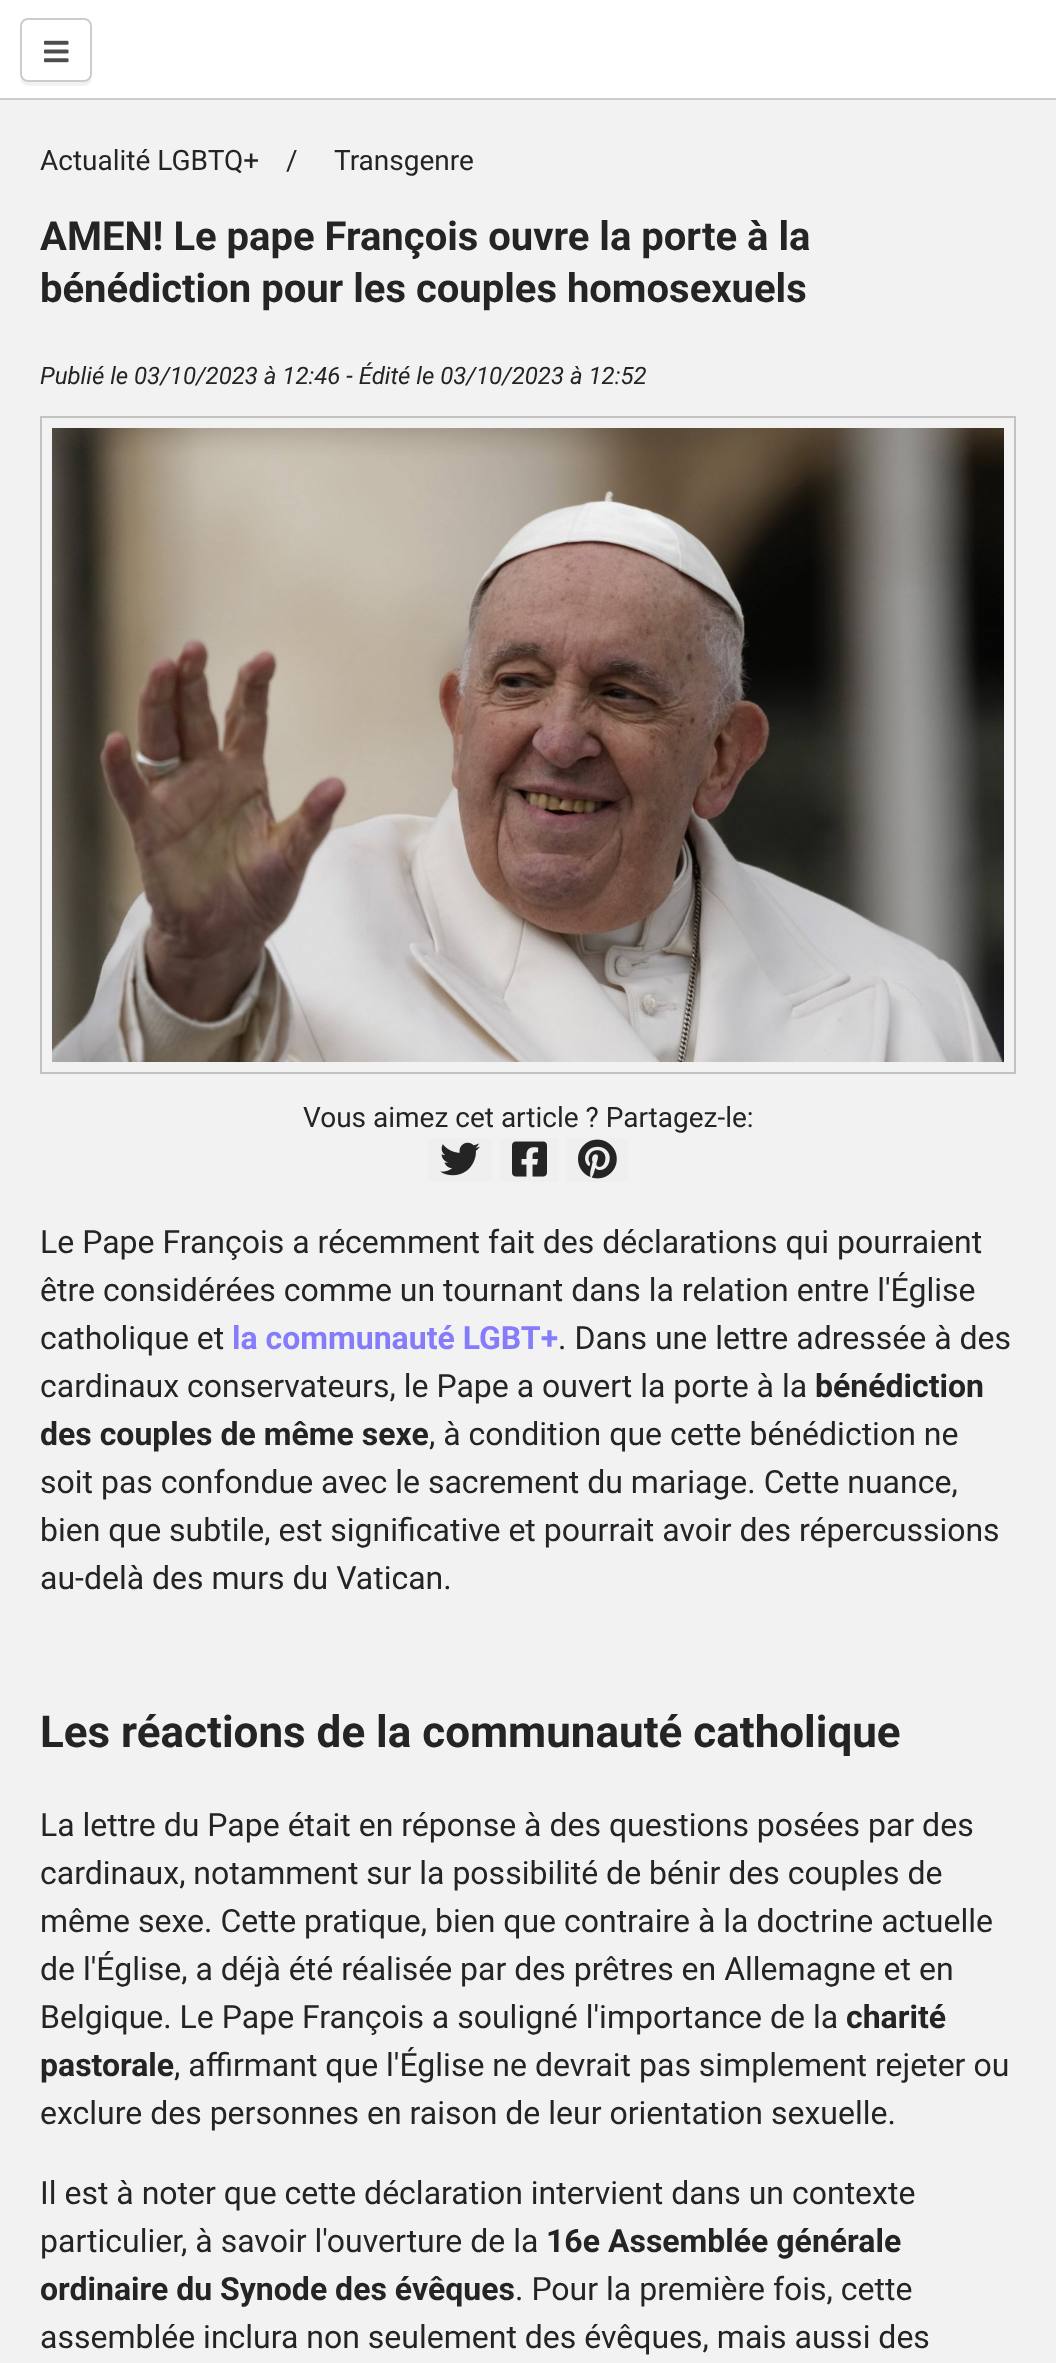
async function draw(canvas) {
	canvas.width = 1056;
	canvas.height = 2363;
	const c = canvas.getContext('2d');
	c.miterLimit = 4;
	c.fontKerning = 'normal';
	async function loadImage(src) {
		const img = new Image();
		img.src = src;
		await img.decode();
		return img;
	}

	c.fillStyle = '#f2f2f2';
	c.fillRect(0, 0, 1056, 2363);
	c.fillStyle = '#fff';
	c.fillRect(0, 0, 1056, 98);
	c.fillStyle = '#ccc';
	c.fillRect(0, 98, 1056, 2);
	c.fillStyle = '#f2f2f2';
	c.beginPath();
	c.moveTo(20, 74);
	c.bezierCurveTo(20, 87, 25, 86, 37, 86);
	c.lineTo(75, 86);
	c.bezierCurveTo(87, 86, 92, 87, 92, 74);
	c.bezierCurveTo(92, 78, 88, 82, 84, 82);
	c.lineTo(28, 82);
	c.bezierCurveTo(24, 82, 20, 78, 20, 74);
	c.closePath();
	c.fill();
	c.fillStyle = '#fff';
	c.beginPath();
	c.roundRect(20, 18, 72, 64, 8);
	c.fill();
	c.beginPath();
	c.roundRect(21, 19, 70, 62, 7);
	c.strokeStyle = '#00000033';
	c.lineWidth = 2;
	c.stroke();
	c.drawImage(await loadImage('img1.png'), 44, 40, 25, 23);
	c.font = '28px Roboto';
	c.fillStyle = '#242424';
	for (const [text, x, y] of [
		['Actualité LGBTQ+', 40, 170],
		['/', 286, 170],
		['Transgenre', 334, 170],
	]) {
		c.fillText(text, x, y);
	}
	c.font = 'bold 40px Roboto';
	c.fillText('AMEN! Le pape François ouvre la porte à la', 40, 250);
	c.fillText('bénédiction pour les couples homosexuels', 40, 302);
	c.font = 'italic 24px Roboto';
	c.fillText('Publié le 03/10/2023 à 12:46 - Édité le 03/10/2023 à 12:52', 40, 384);
	c.strokeStyle = '#c2c2c2';
	c.strokeRect(41, 417, 974, 656);
	c.drawImage(await loadImage('img2.png'), 52, 428, 952, 634);
	c.font = '28px Roboto';
	c.fillText('Vous aimez cet article ? Partagez-le:', 303, 1127);
	c.fillStyle = '#efefef';
	c.fillRect(428, 1138, 64, 44);
	c.drawImage(await loadImage('img3.png'), 440, 1142, 40, 34);
	c.fillRect(500, 1138, 58, 44);
	c.drawImage(await loadImage('img4.png'), 512, 1141, 35, 36);
	c.fillRect(566, 1138, 62, 44);
	c.drawImage(await loadImage('img5.png'), 578, 1139, 39, 40);
	c.font = '32px Roboto';
	c.fillStyle = '#242424';
	for (const [text, x, y] of [
		['Le Pape François a récemment fait des déclarations qui pourraient', 40, 1253],
		['être considérées comme un tournant dans la relation entre l\'Église', 40, 1301],
		['catholique et', 40, 1349],
	]) {
		c.fillText(text, x, y);
	}
	c.font = 'bold 32px Roboto';
	c.fillStyle = '#857cfc';
	c.fillText('la communauté LGBT+', 232, 1349);
	c.font = '32px Roboto';
	c.fillStyle = '#242424';
	c.fillText('. Dans une lettre adressée à des', 558, 1349);
	c.fillText('cardinaux conservateurs, le Pape a ouvert la porte à la', 40, 1397);
	c.font = 'bold 32px Roboto';
	c.fillText('bénédiction', 815, 1397);
	c.fillText('des couples de même sexe', 40, 1445);
	c.font = '32px Roboto';
	for (const [text, x, y] of [
		[', à condition que cette bénédiction ne', 429, 1445],
		['soit pas confondue avec le sacrement du mariage. Cette nuance,', 40, 1493],
		['bien que subtile, est significative et pourrait avoir des répercussions', 40, 1541],
		['au-delà des murs du Vatican.', 40, 1589],
	]) {
		c.fillText(text, x, y);
	}
	c.font = 'bold 44px Roboto';
	c.fillText('Les réactions de la communauté catholique', 40, 1747);
	c.font = '32px Roboto';
	for (const [text, x, y] of [
		['La lettre du Pape était en réponse à des questions posées par des', 40, 1836],
		['cardinaux, notamment sur la possibilité de bénir des couples de', 40, 1884],
		['même sexe. Cette pratique, bien que contraire à la doctrine actuelle', 40, 1932],
		['de l\'Église, a déjà été réalisée par des prêtres en Allemagne et en', 40, 1980],
		['Belgique. Le Pape François a souligné l\'importance de la', 40, 2028],
	]) {
		c.fillText(text, x, y);
	}
	c.font = 'bold 32px Roboto';
	c.fillText('charité', 846, 2028);
	c.fillText('pastorale', 40, 2076);
	c.font = '32px Roboto';
	for (const [text, x, y] of [
		[', affirmant que l\'Église ne devrait pas simplement rejeter ou', 174, 2076],
		['exclure des personnes en raison de leur orientation sexuelle.', 40, 2124],
		['Il est à noter que cette déclaration intervient dans un contexte', 40, 2204],
		['particulier, à savoir l\'ouverture de la', 40, 2252],
	]) {
		c.fillText(text, x, y);
	}
	c.font = 'bold 32px Roboto';
	c.fillText('16e Assemblée générale', 546, 2252);
	c.fillText('ordinaire du Synode des évêques', 40, 2300);
	c.font = '32px Roboto';
	c.fillText('. Pour la première fois, cette', 515, 2300);
	c.fillText('assemblée inclura non seulement des évêques, mais aussi des', 40, 2348);
}

draw(document.querySelector('canvas'));
